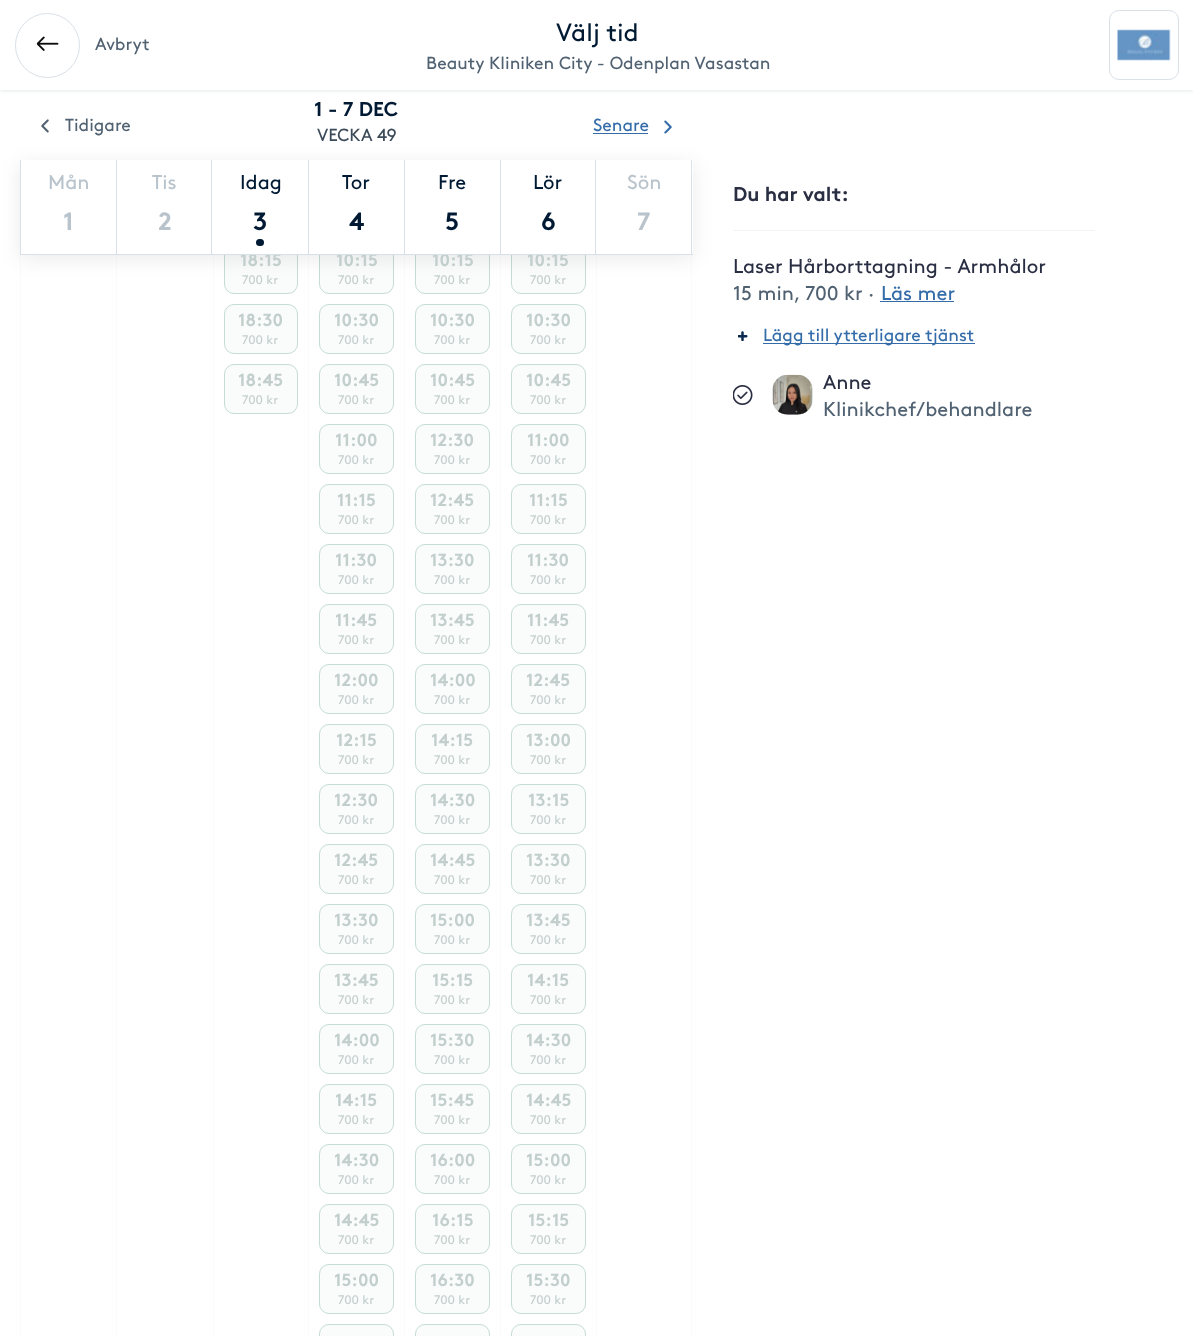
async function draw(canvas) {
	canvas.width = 1193;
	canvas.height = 1336;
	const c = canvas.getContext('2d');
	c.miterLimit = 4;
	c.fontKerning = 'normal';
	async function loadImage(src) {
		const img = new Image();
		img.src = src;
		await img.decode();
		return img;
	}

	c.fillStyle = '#fff';
	c.fillRect(0, 0, 1193, 1336);
	c.save();
	c.beginPath();
	c.rect(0, 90, 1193, 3);
	c.clip();
	c.fillStyle = '#001a331a';
	c.filter = 'blur(2px)';
	c.beginPath();
	c.rect(0, 1, 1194, 90);
	c.fill();
	c.filter = 'none';
	c.restore();
	c.beginPath();
	c.arc(47.5, 45.5, 32, 0, 2 * Math.PI);
	c.strokeStyle = '#d9e0e7';
	c.stroke();
	c.drawImage(await loadImage('img1.png'), 36, 36, 23, 15);
	c.font = '17.5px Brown';
	c.fillStyle = '#506172';
	c.fillText('Avbryt', 95, 50);
	c.font = '25px Brown';
	c.fillStyle = '#001a33';
	c.fillText('Välj tid', 556, 41);
	c.font = '17.5px Brown';
	c.fillStyle = '#506172';
	c.fillText('Beauty Kliniken City - Odenplan Vasastan', 426, 69);
	c.beginPath();
	c.roundRect(1109.5, 10.5, 69, 69, 9.5);
	c.stroke();
	c.drawImage(await loadImage('img2.png'), 1117, 29, 54, 32);
	c.font = 'bold 20px Brown';
	c.fillStyle = '#001a33';
	c.fillText('1 - 7 DEC', 314, 116);
	c.font = '17.5px Brown';
	c.fillStyle = '#3b4a58';
	c.fillText('VECKA 49', 317, 141);
	for (const [x, y, w, h, color] of [
		[20, 255, 1, 1081, '#f9fbfc'],
		[116, 255, 1, 1081, '#f9fbfc'],
		[213, 255, 1, 1081, '#f9fbfc'],
	]) {
		c.fillStyle = color;
		c.fillRect(x, y, w, h);
	}
	c.fillStyle = '#f9fcfb';
	c.beginPath();
	c.roundRect(224.5, 244.5, 73, 49, 9.5);
	c.fill();
	c.strokeStyle = '#c5dcd7';
	c.stroke();
	c.fillStyle = '#f9fbfc';
	c.fillRect(308, 255, 1, 1081);
	c.fillStyle = '#f9fcfb';
	c.beginPath();
	c.roundRect(319.5, 244.5, 74, 49, 9.5);
	c.fill();
	c.stroke();
	c.fillStyle = '#f9fbfc';
	c.fillRect(404, 255, 1, 1081);
	c.fillStyle = '#f9fcfb';
	c.beginPath();
	c.roundRect(415.5, 244.5, 74, 49, 9.5);
	c.fill();
	c.stroke();
	c.fillStyle = '#f9fbfc';
	c.fillRect(500, 255, 1, 1081);
	c.fillStyle = '#f9fcfb';
	c.beginPath();
	c.roundRect(511.5, 244.5, 74, 49, 9.5);
	c.fill();
	c.stroke();
	c.fillStyle = '#f9fbfc';
	c.fillRect(691, 255, 1, 1081);
	c.fillRect(596, 255, 1, 1081);
	c.fillStyle = '#00000014';
	c.filter = 'blur(10px)';
	c.beginPath();
	c.rect(20, 164, 673, 95);
	c.fill();
	c.filter = 'none';
	c.font = 'bold 17.5px Brown';
	c.fillStyle = '#c3cfcd';
	for (const [text, x, y] of [
		['18:15', 240, 266],
		['10:15', 336, 266],
		['10:15', 432, 266],
		['10:15', 527, 266],
	]) {
		c.fillText(text, x, y);
	}
	c.fillStyle = '#fff';
	c.fillRect(21, 160, 672, 94);
	c.drawImage(await loadImage('img3.png'), 41, 119, 8, 14);
	c.font = '17.5px Brown';
	c.fillStyle = '#506172';
	c.fillText('Tidigare', 65, 131);
	c.fillStyle = '#336ca8';
	c.fillText('Senare', 593, 131);
	c.fillRect(593, 133, 55, 1);
	c.drawImage(await loadImage('img4.png'), 664, 120, 8, 14);
	c.fillStyle = '#d9e0e7';
	c.fillRect(20, 254, 575, 1);
	c.fillRect(20, 160, 1, 95);
	c.font = '20px Brown';
	c.fillStyle = '#b8c3cc';
	c.fillText('Mån', 48, 189);
	c.font = 'bold 25px Brown';
	c.fillText('1', 63, 230);
	c.fillStyle = '#d9e0e7';
	c.fillRect(116, 160, 1, 95);
	c.font = '20px Brown';
	c.fillStyle = '#b8c3cc';
	c.fillText('Tis', 152, 189);
	c.font = 'bold 25px Brown';
	c.fillText('2', 158, 230);
	c.fillStyle = '#d9e0e7';
	c.fillRect(211, 160, 1, 95);
	c.font = '20px Brown';
	c.fillStyle = '#001a33';
	c.fillText('Idag', 240, 189);
	c.font = 'bold 25px Brown';
	c.fillText('3', 253, 230);
	c.beginPath();
	c.roundRect(256, 239, 8, 7, 3.5);
	c.fill();
	c.fillStyle = '#d9e0e7';
	c.fillRect(308, 160, 1, 95);
	c.font = '20px Brown';
	c.fillStyle = '#001a33';
	c.fillText('Tor', 342, 189);
	c.font = 'bold 25px Brown';
	c.fillText('4', 349, 230);
	c.fillStyle = '#d9e0e7';
	c.fillRect(404, 160, 1, 95);
	c.font = '20px Brown';
	c.fillStyle = '#001a33';
	c.fillText('Fre', 438, 189);
	c.font = 'bold 25px Brown';
	c.fillText('5', 445, 230);
	c.fillStyle = '#d9e0e7';
	c.fillRect(500, 160, 1, 95);
	c.font = '20px Brown';
	c.fillStyle = '#001a33';
	c.fillText('Lör', 533, 189);
	c.font = 'bold 25px Brown';
	c.fillText('6', 541, 230);
	for (const [x, y, w, h, color] of [
		[691, 160, 1, 95, '#d9e0e7'],
		[595, 254, 98, 1, '#d9e0e7'],
		[595, 160, 1, 95, '#d9e0e7'],
	]) {
		c.fillStyle = color;
		c.fillRect(x, y, w, h);
	}
	c.font = '20px Brown';
	c.fillStyle = '#b8c3cc';
	c.fillText('Sön', 627, 189);
	c.font = 'bold 25px Brown';
	c.fillText('7', 637, 230);
	c.font = '12.5px Brown';
	c.fillStyle = '#c3cfcd';
	c.fillText('700 kr', 242, 284);
	c.fillStyle = '#f9fcfb';
	c.beginPath();
	c.roundRect(224.5, 304.5, 73, 49, 9.5);
	c.fill();
	c.stroke();
	c.font = 'bold 17.5px Brown';
	c.fillStyle = '#c3cfcd';
	c.fillText('18:30', 238, 326);
	c.font = '12.5px Brown';
	c.fillText('700 kr', 242, 344);
	c.fillStyle = '#f9fcfb';
	c.beginPath();
	c.roundRect(224.5, 364.5, 73, 49, 9.5);
	c.fill();
	c.stroke();
	c.font = 'bold 17.5px Brown';
	c.fillStyle = '#c3cfcd';
	c.fillText('18:45', 238, 386);
	c.font = '12.5px Brown';
	c.fillText('700 kr', 242, 404);
	c.fillText('700 kr', 338, 284);
	c.fillStyle = '#f9fcfb';
	c.beginPath();
	c.roundRect(319.5, 304.5, 74, 49, 9.5);
	c.fill();
	c.stroke();
	c.font = 'bold 17.5px Brown';
	c.fillStyle = '#c3cfcd';
	c.fillText('10:30', 334, 326);
	c.font = '12.5px Brown';
	c.fillText('700 kr', 338, 344);
	c.fillStyle = '#f9fcfb';
	c.beginPath();
	c.roundRect(319.5, 364.5, 74, 49, 9.5);
	c.fill();
	c.stroke();
	c.font = 'bold 17.5px Brown';
	c.fillStyle = '#c3cfcd';
	c.fillText('10:45', 334, 386);
	c.font = '12.5px Brown';
	c.fillText('700 kr', 338, 404);
	c.fillStyle = '#f9fcfb';
	c.beginPath();
	c.roundRect(319.5, 424.5, 74, 49, 9.5);
	c.fill();
	c.stroke();
	c.font = 'bold 17.5px Brown';
	c.fillStyle = '#c3cfcd';
	c.fillText('11:00', 335, 446);
	c.font = '12.5px Brown';
	c.fillText('700 kr', 338, 464);
	c.fillStyle = '#f9fcfb';
	c.beginPath();
	c.roundRect(319.5, 484.5, 74, 49, 9.5);
	c.fill();
	c.stroke();
	c.font = 'bold 17.5px Brown';
	c.fillStyle = '#c3cfcd';
	c.fillText('11:15', 337, 506);
	c.font = '12.5px Brown';
	c.fillText('700 kr', 338, 524);
	c.fillStyle = '#f9fcfb';
	c.beginPath();
	c.roundRect(319.5, 544.5, 74, 49, 9.5);
	c.fill();
	c.stroke();
	c.font = 'bold 17.5px Brown';
	c.fillStyle = '#c3cfcd';
	c.fillText('11:30', 335, 566);
	c.font = '12.5px Brown';
	c.fillText('700 kr', 338, 584);
	c.fillStyle = '#f9fcfb';
	c.beginPath();
	c.roundRect(319.5, 604.5, 74, 49, 9.5);
	c.fill();
	c.stroke();
	c.font = 'bold 17.5px Brown';
	c.fillStyle = '#c3cfcd';
	c.fillText('11:45', 335, 626);
	c.font = '12.5px Brown';
	c.fillText('700 kr', 338, 644);
	c.fillStyle = '#f9fcfb';
	c.beginPath();
	c.roundRect(319.5, 664.5, 74, 49, 9.5);
	c.fill();
	c.stroke();
	c.font = 'bold 17.5px Brown';
	c.fillStyle = '#c3cfcd';
	c.fillText('12:00', 334, 686);
	c.font = '12.5px Brown';
	c.fillText('700 kr', 338, 704);
	c.fillStyle = '#f9fcfb';
	c.beginPath();
	c.roundRect(319.5, 724.5, 74, 49, 9.5);
	c.fill();
	c.stroke();
	c.font = 'bold 17.5px Brown';
	c.fillStyle = '#c3cfcd';
	c.fillText('12:15', 336, 746);
	c.font = '12.5px Brown';
	c.fillText('700 kr', 338, 764);
	c.fillStyle = '#f9fcfb';
	c.beginPath();
	c.roundRect(319.5, 784.5, 74, 49, 9.5);
	c.fill();
	c.stroke();
	c.font = 'bold 17.5px Brown';
	c.fillStyle = '#c3cfcd';
	c.fillText('12:30', 334, 806);
	c.font = '12.5px Brown';
	c.fillText('700 kr', 338, 824);
	c.fillStyle = '#f9fcfb';
	c.beginPath();
	c.roundRect(319.5, 844.5, 74, 49, 9.5);
	c.fill();
	c.stroke();
	c.font = 'bold 17.5px Brown';
	c.fillStyle = '#c3cfcd';
	c.fillText('12:45', 334, 866);
	c.font = '12.5px Brown';
	c.fillText('700 kr', 338, 884);
	c.fillStyle = '#f9fcfb';
	c.beginPath();
	c.roundRect(319.5, 904.5, 74, 49, 9.5);
	c.fill();
	c.stroke();
	c.font = 'bold 17.5px Brown';
	c.fillStyle = '#c3cfcd';
	c.fillText('13:30', 334, 926);
	c.font = '12.5px Brown';
	c.fillText('700 kr', 338, 944);
	c.fillStyle = '#f9fcfb';
	c.beginPath();
	c.roundRect(319.5, 964.5, 74, 49, 9.5);
	c.fill();
	c.stroke();
	c.font = 'bold 17.5px Brown';
	c.fillStyle = '#c3cfcd';
	c.fillText('13:45', 334, 986);
	c.font = '12.5px Brown';
	c.fillText('700 kr', 338, 1004);
	c.fillStyle = '#f9fcfb';
	c.beginPath();
	c.roundRect(319.5, 1024.5, 74, 49, 9.5);
	c.fill();
	c.stroke();
	c.font = 'bold 17.5px Brown';
	c.fillStyle = '#c3cfcd';
	c.fillText('14:00', 334, 1046);
	c.font = '12.5px Brown';
	c.fillText('700 kr', 338, 1064);
	c.fillStyle = '#f9fcfb';
	c.beginPath();
	c.roundRect(319.5, 1084.5, 74, 49, 9.5);
	c.fill();
	c.stroke();
	c.font = 'bold 17.5px Brown';
	c.fillStyle = '#c3cfcd';
	c.fillText('14:15', 335, 1106);
	c.font = '12.5px Brown';
	c.fillText('700 kr', 338, 1124);
	c.fillStyle = '#f9fcfb';
	c.beginPath();
	c.roundRect(319.5, 1144.5, 74, 49, 9.5);
	c.fill();
	c.stroke();
	c.font = 'bold 17.5px Brown';
	c.fillStyle = '#c3cfcd';
	c.fillText('14:30', 334, 1166);
	c.font = '12.5px Brown';
	c.fillText('700 kr', 338, 1184);
	c.fillStyle = '#f9fcfb';
	c.beginPath();
	c.roundRect(319.5, 1204.5, 74, 49, 9.5);
	c.fill();
	c.stroke();
	c.font = 'bold 17.5px Brown';
	c.fillStyle = '#c3cfcd';
	c.fillText('14:45', 334, 1226);
	c.font = '12.5px Brown';
	c.fillText('700 kr', 338, 1244);
	c.fillStyle = '#f9fcfb';
	c.beginPath();
	c.roundRect(319.5, 1264.5, 74, 49, 9.5);
	c.fill();
	c.stroke();
	c.font = 'bold 17.5px Brown';
	c.fillStyle = '#c3cfcd';
	c.fillText('15:00', 334, 1286);
	c.font = '12.5px Brown';
	c.fillText('700 kr', 338, 1304);
	c.fillStyle = '#f9fcfb';
	c.beginPath();
	c.roundRect(319.5, 1324.5, 74, 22, 9.5);
	c.fill();
	c.stroke();
	c.fillStyle = '#c3cfcd';
	c.fillText('700 kr', 434, 284);
	c.fillStyle = '#f9fcfb';
	c.beginPath();
	c.roundRect(415.5, 304.5, 74, 49, 9.5);
	c.fill();
	c.stroke();
	c.font = 'bold 17.5px Brown';
	c.fillStyle = '#c3cfcd';
	c.fillText('10:30', 430, 326);
	c.font = '12.5px Brown';
	c.fillText('700 kr', 434, 344);
	c.fillStyle = '#f9fcfb';
	c.beginPath();
	c.roundRect(415.5, 364.5, 74, 49, 9.5);
	c.fill();
	c.stroke();
	c.font = 'bold 17.5px Brown';
	c.fillStyle = '#c3cfcd';
	c.fillText('10:45', 430, 386);
	c.font = '12.5px Brown';
	c.fillText('700 kr', 434, 404);
	c.fillStyle = '#f9fcfb';
	c.beginPath();
	c.roundRect(415.5, 424.5, 74, 49, 9.5);
	c.fill();
	c.stroke();
	c.font = 'bold 17.5px Brown';
	c.fillStyle = '#c3cfcd';
	c.fillText('12:30', 430, 446);
	c.font = '12.5px Brown';
	c.fillText('700 kr', 434, 464);
	c.fillStyle = '#f9fcfb';
	c.beginPath();
	c.roundRect(415.5, 484.5, 74, 49, 9.5);
	c.fill();
	c.stroke();
	c.font = 'bold 17.5px Brown';
	c.fillStyle = '#c3cfcd';
	c.fillText('12:45', 430, 506);
	c.font = '12.5px Brown';
	c.fillText('700 kr', 434, 524);
	c.fillStyle = '#f9fcfb';
	c.beginPath();
	c.roundRect(415.5, 544.5, 74, 49, 9.5);
	c.fill();
	c.stroke();
	c.font = 'bold 17.5px Brown';
	c.fillStyle = '#c3cfcd';
	c.fillText('13:30', 430, 566);
	c.font = '12.5px Brown';
	c.fillText('700 kr', 434, 584);
	c.fillStyle = '#f9fcfb';
	c.beginPath();
	c.roundRect(415.5, 604.5, 74, 49, 9.5);
	c.fill();
	c.stroke();
	c.font = 'bold 17.5px Brown';
	c.fillStyle = '#c3cfcd';
	c.fillText('13:45', 430, 626);
	c.font = '12.5px Brown';
	c.fillText('700 kr', 434, 644);
	c.fillStyle = '#f9fcfb';
	c.beginPath();
	c.roundRect(415.5, 664.5, 74, 49, 9.5);
	c.fill();
	c.stroke();
	c.font = 'bold 17.5px Brown';
	c.fillStyle = '#c3cfcd';
	c.fillText('14:00', 430, 686);
	c.font = '12.5px Brown';
	c.fillText('700 kr', 434, 704);
	c.fillStyle = '#f9fcfb';
	c.beginPath();
	c.roundRect(415.5, 724.5, 74, 49, 9.5);
	c.fill();
	c.stroke();
	c.font = 'bold 17.5px Brown';
	c.fillStyle = '#c3cfcd';
	c.fillText('14:15', 431, 746);
	c.font = '12.5px Brown';
	c.fillText('700 kr', 434, 764);
	c.fillStyle = '#f9fcfb';
	c.beginPath();
	c.roundRect(415.5, 784.5, 74, 49, 9.5);
	c.fill();
	c.stroke();
	c.font = 'bold 17.5px Brown';
	c.fillStyle = '#c3cfcd';
	c.fillText('14:30', 430, 806);
	c.font = '12.5px Brown';
	c.fillText('700 kr', 434, 824);
	c.fillStyle = '#f9fcfb';
	c.beginPath();
	c.roundRect(415.5, 844.5, 74, 49, 9.5);
	c.fill();
	c.stroke();
	c.font = 'bold 17.5px Brown';
	c.fillStyle = '#c3cfcd';
	c.fillText('14:45', 430, 866);
	c.font = '12.5px Brown';
	c.fillText('700 kr', 434, 884);
	c.fillStyle = '#f9fcfb';
	c.beginPath();
	c.roundRect(415.5, 904.5, 74, 49, 9.5);
	c.fill();
	c.stroke();
	c.font = 'bold 17.5px Brown';
	c.fillStyle = '#c3cfcd';
	c.fillText('15:00', 430, 926);
	c.font = '12.5px Brown';
	c.fillText('700 kr', 434, 944);
	c.fillStyle = '#f9fcfb';
	c.beginPath();
	c.roundRect(415.5, 964.5, 74, 49, 9.5);
	c.fill();
	c.stroke();
	c.font = 'bold 17.5px Brown';
	c.fillStyle = '#c3cfcd';
	c.fillText('15:15', 432, 986);
	c.font = '12.5px Brown';
	c.fillText('700 kr', 434, 1004);
	c.fillStyle = '#f9fcfb';
	c.beginPath();
	c.roundRect(415.5, 1024.5, 74, 49, 9.5);
	c.fill();
	c.stroke();
	c.font = 'bold 17.5px Brown';
	c.fillStyle = '#c3cfcd';
	c.fillText('15:30', 430, 1046);
	c.font = '12.5px Brown';
	c.fillText('700 kr', 434, 1064);
	c.fillStyle = '#f9fcfb';
	c.beginPath();
	c.roundRect(415.5, 1084.5, 74, 49, 9.5);
	c.fill();
	c.stroke();
	c.font = 'bold 17.5px Brown';
	c.fillStyle = '#c3cfcd';
	c.fillText('15:45', 430, 1106);
	c.font = '12.5px Brown';
	c.fillText('700 kr', 434, 1124);
	c.fillStyle = '#f9fcfb';
	c.beginPath();
	c.roundRect(415.5, 1144.5, 74, 49, 9.5);
	c.fill();
	c.stroke();
	c.font = 'bold 17.5px Brown';
	c.fillStyle = '#c3cfcd';
	c.fillText('16:00', 430, 1166);
	c.font = '12.5px Brown';
	c.fillText('700 kr', 434, 1184);
	c.fillStyle = '#f9fcfb';
	c.beginPath();
	c.roundRect(415.5, 1204.5, 74, 49, 9.5);
	c.fill();
	c.stroke();
	c.font = 'bold 17.5px Brown';
	c.fillStyle = '#c3cfcd';
	c.fillText('16:15', 432, 1226);
	c.font = '12.5px Brown';
	c.fillText('700 kr', 434, 1244);
	c.fillStyle = '#f9fcfb';
	c.beginPath();
	c.roundRect(415.5, 1264.5, 74, 49, 9.5);
	c.fill();
	c.stroke();
	c.font = 'bold 17.5px Brown';
	c.fillStyle = '#c3cfcd';
	c.fillText('16:30', 430, 1286);
	c.font = '12.5px Brown';
	c.fillText('700 kr', 434, 1304);
	c.fillStyle = '#f9fcfb';
	c.beginPath();
	c.roundRect(415.5, 1324.5, 74, 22, 9.5);
	c.fill();
	c.stroke();
	c.fillStyle = '#c3cfcd';
	c.fillText('700 kr', 530, 284);
	c.fillStyle = '#f9fcfb';
	c.beginPath();
	c.roundRect(511.5, 304.5, 74, 49, 9.5);
	c.fill();
	c.stroke();
	c.font = 'bold 17.5px Brown';
	c.fillStyle = '#c3cfcd';
	c.fillText('10:30', 526, 326);
	c.font = '12.5px Brown';
	c.fillText('700 kr', 530, 344);
	c.fillStyle = '#f9fcfb';
	c.beginPath();
	c.roundRect(511.5, 364.5, 74, 49, 9.5);
	c.fill();
	c.stroke();
	c.font = 'bold 17.5px Brown';
	c.fillStyle = '#c3cfcd';
	c.fillText('10:45', 526, 386);
	c.font = '12.5px Brown';
	c.fillText('700 kr', 530, 404);
	c.fillStyle = '#f9fcfb';
	c.beginPath();
	c.roundRect(511.5, 424.5, 74, 49, 9.5);
	c.fill();
	c.stroke();
	c.font = 'bold 17.5px Brown';
	c.fillStyle = '#c3cfcd';
	c.fillText('11:00', 527, 446);
	c.font = '12.5px Brown';
	c.fillText('700 kr', 530, 464);
	c.fillStyle = '#f9fcfb';
	c.beginPath();
	c.roundRect(511.5, 484.5, 74, 49, 9.5);
	c.fill();
	c.stroke();
	c.font = 'bold 17.5px Brown';
	c.fillStyle = '#c3cfcd';
	c.fillText('11:15', 529, 506);
	c.font = '12.5px Brown';
	c.fillText('700 kr', 530, 524);
	c.fillStyle = '#f9fcfb';
	c.beginPath();
	c.roundRect(511.5, 544.5, 74, 49, 9.5);
	c.fill();
	c.stroke();
	c.font = 'bold 17.5px Brown';
	c.fillStyle = '#c3cfcd';
	c.fillText('11:30', 527, 566);
	c.font = '12.5px Brown';
	c.fillText('700 kr', 530, 584);
	c.fillStyle = '#f9fcfb';
	c.beginPath();
	c.roundRect(511.5, 604.5, 74, 49, 9.5);
	c.fill();
	c.stroke();
	c.font = 'bold 17.5px Brown';
	c.fillStyle = '#c3cfcd';
	c.fillText('11:45', 527, 626);
	c.font = '12.5px Brown';
	c.fillText('700 kr', 530, 644);
	c.fillStyle = '#f9fcfb';
	c.beginPath();
	c.roundRect(511.5, 664.5, 74, 49, 9.5);
	c.fill();
	c.stroke();
	c.font = 'bold 17.5px Brown';
	c.fillStyle = '#c3cfcd';
	c.fillText('12:45', 526, 686);
	c.font = '12.5px Brown';
	c.fillText('700 kr', 530, 704);
	c.fillStyle = '#f9fcfb';
	c.beginPath();
	c.roundRect(511.5, 724.5, 74, 49, 9.5);
	c.fill();
	c.stroke();
	c.font = 'bold 17.5px Brown';
	c.fillStyle = '#c3cfcd';
	c.fillText('13:00', 526, 746);
	c.font = '12.5px Brown';
	c.fillText('700 kr', 530, 764);
	c.fillStyle = '#f9fcfb';
	c.beginPath();
	c.roundRect(511.5, 784.5, 74, 49, 9.5);
	c.fill();
	c.stroke();
	c.font = 'bold 17.5px Brown';
	c.fillStyle = '#c3cfcd';
	c.fillText('13:15', 528, 806);
	c.font = '12.5px Brown';
	c.fillText('700 kr', 530, 824);
	c.fillStyle = '#f9fcfb';
	c.beginPath();
	c.roundRect(511.5, 844.5, 74, 49, 9.5);
	c.fill();
	c.stroke();
	c.font = 'bold 17.5px Brown';
	c.fillStyle = '#c3cfcd';
	c.fillText('13:30', 526, 866);
	c.font = '12.5px Brown';
	c.fillText('700 kr', 530, 884);
	c.fillStyle = '#f9fcfb';
	c.beginPath();
	c.roundRect(511.5, 904.5, 74, 49, 9.5);
	c.fill();
	c.stroke();
	c.font = 'bold 17.5px Brown';
	c.fillStyle = '#c3cfcd';
	c.fillText('13:45', 526, 926);
	c.font = '12.5px Brown';
	c.fillText('700 kr', 530, 944);
	c.fillStyle = '#f9fcfb';
	c.beginPath();
	c.roundRect(511.5, 964.5, 74, 49, 9.5);
	c.fill();
	c.stroke();
	c.font = 'bold 17.5px Brown';
	c.fillStyle = '#c3cfcd';
	c.fillText('14:15', 527, 986);
	c.font = '12.5px Brown';
	c.fillText('700 kr', 530, 1004);
	c.fillStyle = '#f9fcfb';
	c.beginPath();
	c.roundRect(511.5, 1024.5, 74, 49, 9.5);
	c.fill();
	c.stroke();
	c.font = 'bold 17.5px Brown';
	c.fillStyle = '#c3cfcd';
	c.fillText('14:30', 526, 1046);
	c.font = '12.5px Brown';
	c.fillText('700 kr', 530, 1064);
	c.fillStyle = '#f9fcfb';
	c.beginPath();
	c.roundRect(511.5, 1084.5, 74, 49, 9.5);
	c.fill();
	c.stroke();
	c.font = 'bold 17.5px Brown';
	c.fillStyle = '#c3cfcd';
	c.fillText('14:45', 526, 1106);
	c.font = '12.5px Brown';
	c.fillText('700 kr', 530, 1124);
	c.fillStyle = '#f9fcfb';
	c.beginPath();
	c.roundRect(511.5, 1144.5, 74, 49, 9.5);
	c.fill();
	c.stroke();
	c.font = 'bold 17.5px Brown';
	c.fillStyle = '#c3cfcd';
	c.fillText('15:00', 526, 1166);
	c.font = '12.5px Brown';
	c.fillText('700 kr', 530, 1184);
	c.fillStyle = '#f9fcfb';
	c.beginPath();
	c.roundRect(511.5, 1204.5, 74, 49, 9.5);
	c.fill();
	c.stroke();
	c.font = 'bold 17.5px Brown';
	c.fillStyle = '#c3cfcd';
	c.fillText('15:15', 528, 1226);
	c.font = '12.5px Brown';
	c.fillText('700 kr', 530, 1244);
	c.fillStyle = '#f9fcfb';
	c.beginPath();
	c.roundRect(511.5, 1264.5, 74, 49, 9.5);
	c.fill();
	c.stroke();
	c.font = 'bold 17.5px Brown';
	c.fillStyle = '#c3cfcd';
	c.fillText('15:30', 526, 1286);
	c.font = '12.5px Brown';
	c.fillText('700 kr', 530, 1304);
	c.fillStyle = '#f9fcfb';
	c.beginPath();
	c.roundRect(511.5, 1324.5, 74, 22, 9.5);
	c.fill();
	c.stroke();
	c.fillStyle = '#f4f4f6';
	c.fillRect(733, 230, 362, 1);
	c.font = 'bold 20px Brown';
	c.fillStyle = '#2a2e43';
	c.fillText('Du har valt:', 733, 201);
	c.font = '20px Brown';
	c.fillText('Laser Hårborttagning - Armhålor', 733, 273);
	c.fillStyle = '#506172';
	c.fillText('15 min, 700 kr ·', 733, 300);
	c.fillStyle = '#336ca8';
	c.fillText('Läs mer', 881, 300);
	c.fillRect(880, 301, 74, 1);
	c.drawImage(await loadImage('img5.png'), 738, 331, 10, 10);
	c.fillRect(763, 343, 212, 1);
	c.font = '17.5px Brown';
	c.fillText('Lägg till ytterligare tjänst', 763, 341);
	c.drawImage(await loadImage('img6.png'), 733, 385, 20, 20);
	c.fillStyle = '#f2f7fa';
	c.beginPath();
	c.roundRect(773, 375, 40, 40, 15);
	c.fill();
	c.drawImage(await loadImage('img7.png'), 772, 374, 41, 41);
	c.font = '20px Brown';
	c.fillStyle = '#2a2e43';
	c.fillText('Anne', 823, 389);
	c.fillStyle = '#506172';
	c.fillText('Klinikchef/behandlare', 823, 416);
}

draw(document.querySelector('canvas'));
